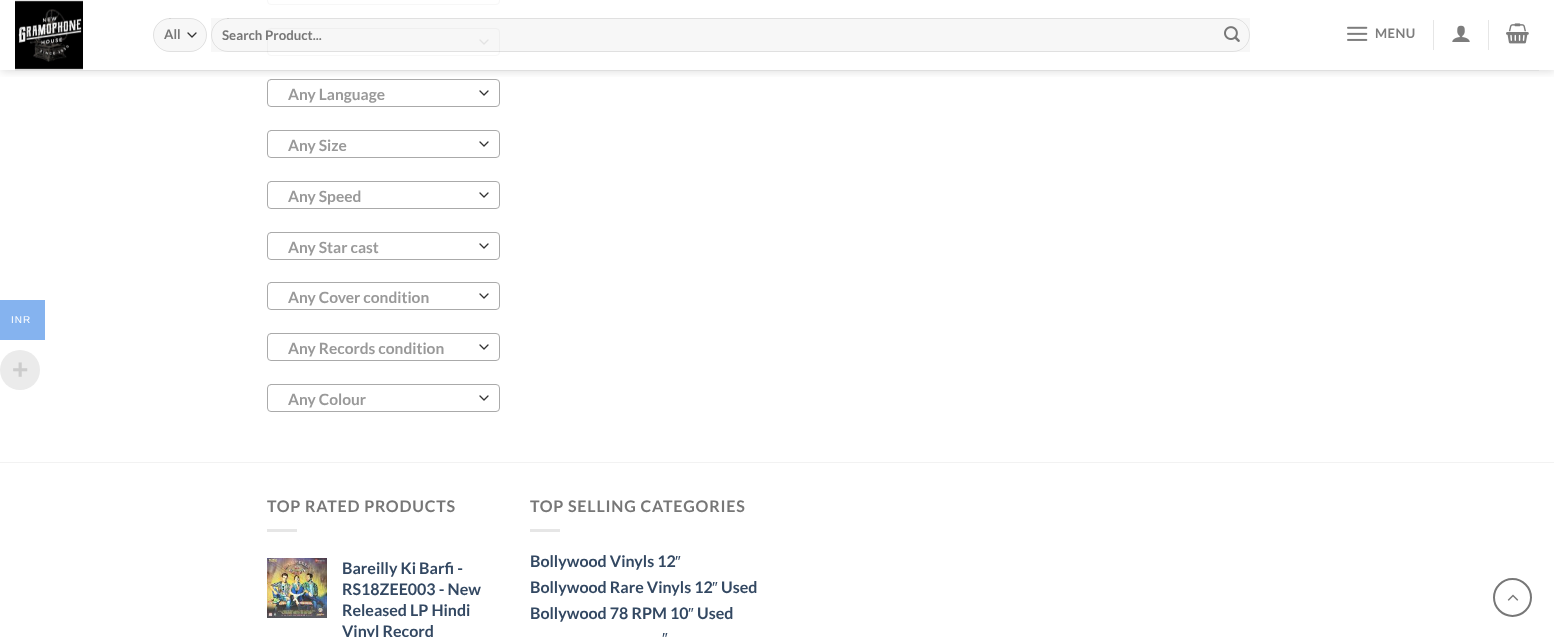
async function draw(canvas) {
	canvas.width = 1554;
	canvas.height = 637;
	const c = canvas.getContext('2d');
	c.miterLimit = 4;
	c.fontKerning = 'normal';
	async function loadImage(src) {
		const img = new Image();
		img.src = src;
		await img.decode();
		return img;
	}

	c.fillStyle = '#fff';
	c.fillRect(0, 0, 1554, 637);
	c.fillStyle = '#85b3ef';
	c.fillRect(0, 300, 45, 40);
	c.letterSpacing = '1px';
	c.font = '10px Liberation Sans';
	c.fillStyle = '#fff';
	c.fillText('INR', 11, 323);
	c.fillStyle = '#ebebeb';
	c.beginPath();
	c.arc(20, 370, 20, 0, 2 * Math.PI);
	c.fill();
	c.letterSpacing = '0px';
	c.font = 'bold 28px Liberation Sans';
	c.fillStyle = '#ccc';
	c.fillText('+', 12, 379);
	c.beginPath();
	c.roundRect(267.5, -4.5, 232, 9, 3.5);
	c.strokeStyle = '#f7f7f7';
	c.stroke();
	c.beginPath();
	c.moveTo(480, 40);
	c.lineTo(484, 44);
	c.lineTo(488, 40);
	c.strokeStyle = '#ebebeb';
	c.lineWidth = 1.3;
	c.lineCap = 'round';
	c.lineJoin = 'round';
	c.stroke();
	c.beginPath();
	c.roundRect(267.5, 28.5, 232, 27, 3.5);
	c.strokeStyle = '#f7f7f7';
	c.lineWidth = 1;
	c.lineJoin = 'miter';
	c.stroke();
	c.beginPath();
	c.moveTo(480, 91);
	c.lineTo(484, 95);
	c.lineTo(488, 91);
	c.strokeStyle = '#333';
	c.lineWidth = 1.3;
	c.lineJoin = 'round';
	c.stroke();
	c.beginPath();
	c.roundRect(267.5, 79.5, 232, 27, 3.5);
	c.strokeStyle = '#aaa';
	c.lineWidth = 1;
	c.lineJoin = 'miter';
	c.stroke();
	c.save();
	c.beginPath();
	c.rect(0, 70, 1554, 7);
	c.clip();
	c.fillStyle = '#00000026';
	c.filter = 'blur(5px)';
	c.beginPath();
	c.rect(1, 1, 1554, 70);
	c.fill();
	c.filter = 'none';
	c.restore();
	c.drawImage(await loadImage('img1.png'), 15, 0, 68, 70);
	c.fillStyle = '#f7f7f7';
	c.beginPath();
	c.roundRect(153, 18, 54, 34, 17);
	c.fill();
	c.beginPath();
	c.moveTo(188, 33);
	c.lineTo(192, 37);
	c.lineTo(196, 33);
	c.strokeStyle = '#333';
	c.lineWidth = 1.3;
	c.lineJoin = 'round';
	c.stroke();
	c.beginPath();
	c.roundRect(153.5, 18.5, 53, 33, 16.5);
	c.strokeStyle = '#00000017';
	c.lineWidth = 1;
	c.lineJoin = 'miter';
	c.stroke();
	c.font = 'bold 13.25px Lato';
	c.fillStyle = '#777';
	c.fillText('All', 164, 39);
	c.fillStyle = '#00000008';
	c.fillRect(211, 18, 1039, 34);
	c.beginPath();
	c.roundRect(211.5, 18.5, 1038, 33, 16.5);
	c.stroke();
	c.fillStyle = '#777';
	c.fillText('Search Product...', 222, 40);
	c.drawImage(await loadImage('img2.png'), 1224, 26, 16, 16);
	c.drawImage(await loadImage('img3.png'), 1347, 26, 21, 15);
	c.letterSpacing = '0.5px';
	c.font = 'bold 13px Lato';
	c.fillStyle = '#7d7d7d';
	c.fillText('MENU', 1375, 38);
	c.fillStyle = '#e6e6e6';
	c.fillRect(1433, 20, 1, 30);
	c.drawImage(await loadImage('img4.png'), 1452, 25, 18, 17);
	c.fillRect(1488, 20, 1, 30);
	c.drawImage(await loadImage('img5.png'), 1506, 23, 23, 21);
	c.fillStyle = '#dfdfdf';
	c.fillRect(15, 70, 1524, 1);
	c.letterSpacing = '0px';
	c.font = 'bold 15.5px Lato';
	c.fillStyle = '#999';
	c.fillText('Any Language', 288, 100);
	c.beginPath();
	c.moveTo(480, 142);
	c.lineTo(484, 146);
	c.lineTo(488, 142);
	c.strokeStyle = '#333';
	c.lineWidth = 1.3;
	c.lineJoin = 'round';
	c.stroke();
	c.beginPath();
	c.roundRect(267.5, 130.5, 232, 27, 3.5);
	c.strokeStyle = '#aaa';
	c.lineWidth = 1;
	c.lineJoin = 'miter';
	c.stroke();
	c.fillText('Any Size', 288, 151);
	c.beginPath();
	c.moveTo(480, 193);
	c.lineTo(484, 197);
	c.lineTo(488, 193);
	c.strokeStyle = '#333';
	c.lineWidth = 1.3;
	c.lineJoin = 'round';
	c.stroke();
	c.beginPath();
	c.roundRect(267.5, 181.5, 232, 27, 3.5);
	c.strokeStyle = '#aaa';
	c.lineWidth = 1;
	c.lineJoin = 'miter';
	c.stroke();
	c.fillText('Any Speed', 288, 202);
	c.beginPath();
	c.moveTo(480, 244);
	c.lineTo(484, 248);
	c.lineTo(488, 244);
	c.strokeStyle = '#333';
	c.lineWidth = 1.3;
	c.lineJoin = 'round';
	c.stroke();
	c.beginPath();
	c.roundRect(267.5, 232.5, 232, 27, 3.5);
	c.strokeStyle = '#aaa';
	c.lineWidth = 1;
	c.lineJoin = 'miter';
	c.stroke();
	c.fillText('Any Star cast', 288, 253);
	c.beginPath();
	c.moveTo(480, 294);
	c.lineTo(484, 298);
	c.lineTo(488, 294);
	c.strokeStyle = '#333';
	c.lineWidth = 1.3;
	c.lineJoin = 'round';
	c.stroke();
	c.beginPath();
	c.roundRect(267.5, 282.5, 232, 27, 3.5);
	c.strokeStyle = '#aaa';
	c.lineWidth = 1;
	c.lineJoin = 'miter';
	c.stroke();
	c.fillText('Any Cover condition', 288, 303);
	c.beginPath();
	c.moveTo(480, 345);
	c.lineTo(484, 349);
	c.lineTo(488, 345);
	c.strokeStyle = '#333';
	c.lineWidth = 1.3;
	c.lineJoin = 'round';
	c.stroke();
	c.beginPath();
	c.roundRect(267.5, 333.5, 232, 27, 3.5);
	c.strokeStyle = '#aaa';
	c.lineWidth = 1;
	c.lineJoin = 'miter';
	c.stroke();
	c.fillText('Any Records condition', 288, 354);
	c.beginPath();
	c.moveTo(480, 396);
	c.lineTo(484, 400);
	c.lineTo(488, 396);
	c.strokeStyle = '#333';
	c.lineWidth = 1.3;
	c.lineJoin = 'round';
	c.stroke();
	c.beginPath();
	c.roundRect(267.5, 384.5, 232, 27, 3.5);
	c.strokeStyle = '#aaa';
	c.lineWidth = 1;
	c.lineJoin = 'miter';
	c.stroke();
	c.fillText('Any Colour', 288, 405);
	c.fillStyle = '#f2f2f2';
	c.fillRect(0, 462, 1554, 1);
	c.letterSpacing = '0.8px';
	c.font = 'bold 16px Lato';
	c.fillStyle = '#777';
	c.fillText('TOP RATED PRODUCTS', 267, 512);
	c.fillStyle = '#e6e6e6';
	c.fillRect(267, 529, 30, 3);
	c.drawImage(await loadImage('img6.png'), 267, 558, 60, 60);
	c.letterSpacing = '0px';
	c.fillStyle = '#334862';
	for (const [text, x, y] of [
		['Bareilly Ki Barfi -', 342, 574],
		['RS18ZEE003 - New', 342, 595],
		['Released LP Hindi', 342, 616],
		['Vinyl Record', 342, 637],
	]) {
		c.fillText(text, x, y);
	}
	c.letterSpacing = '0.8px';
	c.fillStyle = '#777';
	c.fillText('TOP SELLING CATEGORIES', 530, 512);
	c.fillStyle = '#e6e6e6';
	c.fillRect(530, 529, 30, 3);
	c.letterSpacing = '0px';
	c.fillStyle = '#334862';
	c.fillText('Bollywood Vinyls 12', 530, 567);
	c.font = '16px Liberation Sans';
	c.fillText('″', 675, 567);
	c.font = 'bold 16px Lato';
	c.fillText('Bollywood Rare Vinyls 12', 530, 593);
	c.font = '16px Liberation Sans';
	c.fillText('″', 712, 593);
	c.font = 'bold 16px Lato';
	c.fillText('Used', 721, 593);
	c.fillText('Bollywood 78 RPM 10', 530, 619);
	c.font = '16px Liberation Sans';
	c.fillText('″', 688, 619);
	c.font = 'bold 16px Lato';
	c.fillText('Used', 697, 619);
	c.font = '16px Liberation Sans';
	c.fillText('″', 662, 644);
	c.beginPath();
	c.arc(1512.5, 597.5, 18.5, 0, 2 * Math.PI);
	c.strokeStyle = '#777';
	c.lineWidth = 2;
	c.stroke();
	c.drawImage(await loadImage('img7.png'), 1507, 594, 12, 7);
}

draw(document.querySelector('canvas'));
